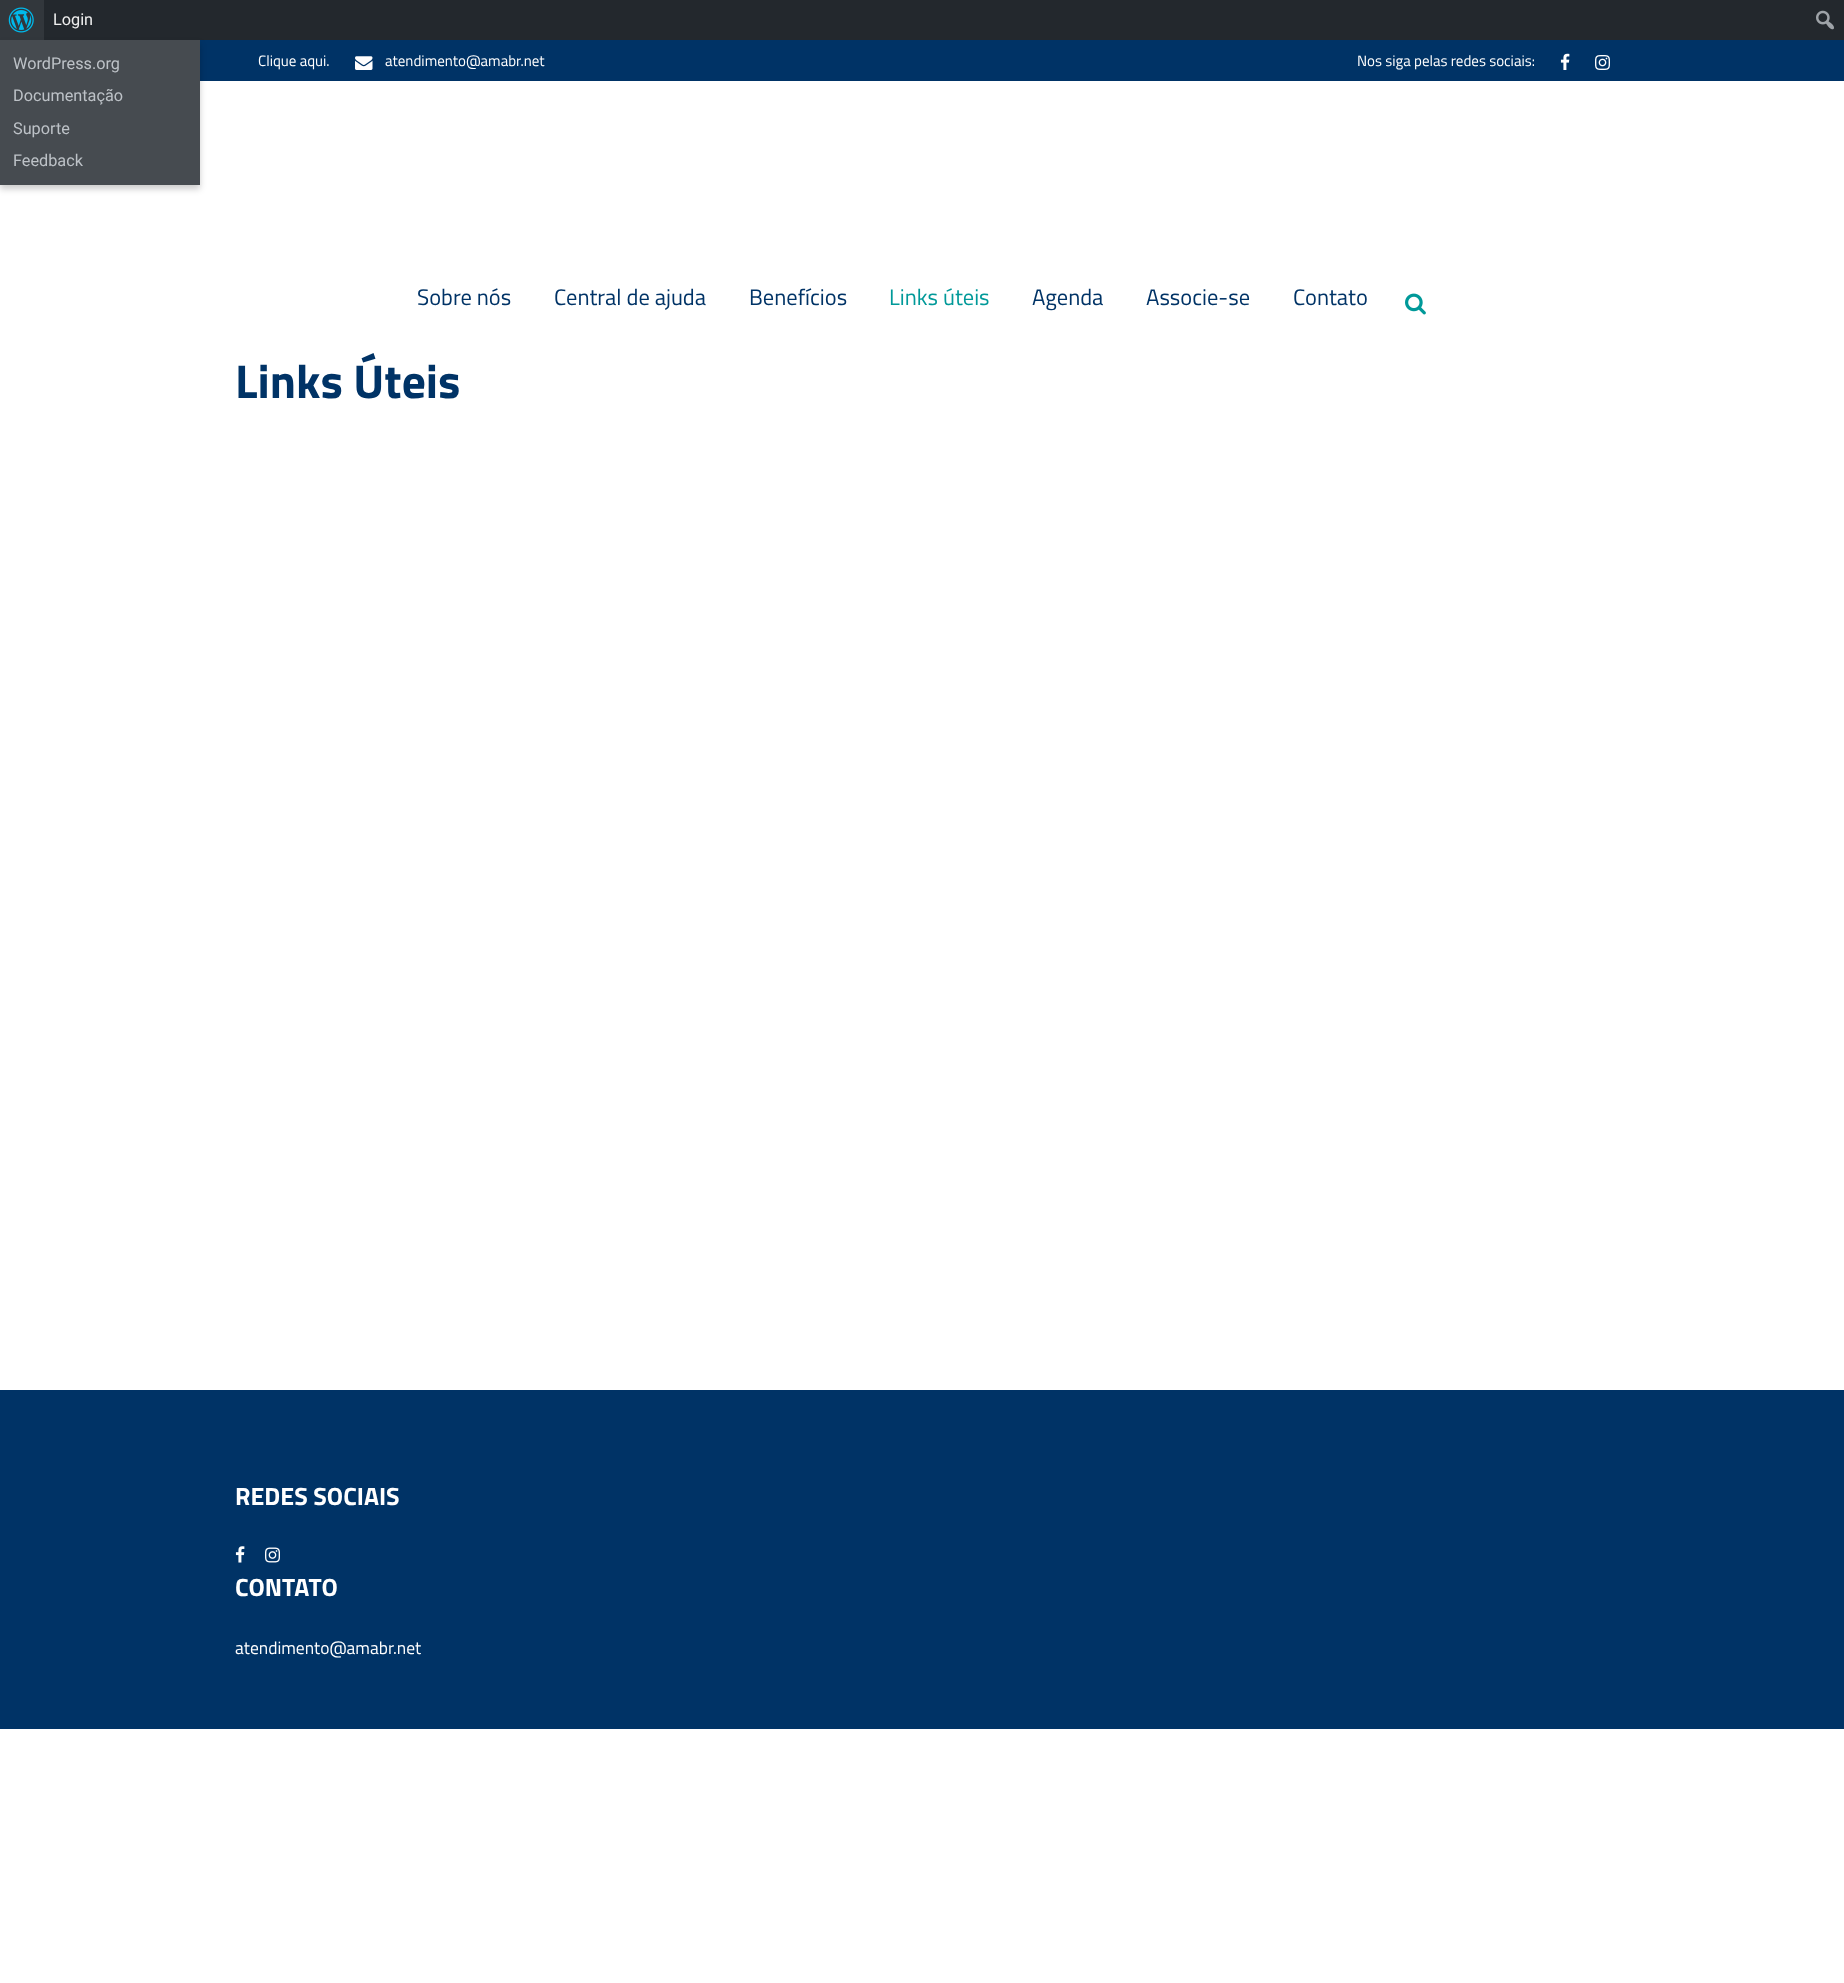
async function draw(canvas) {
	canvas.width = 1844;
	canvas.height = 1983;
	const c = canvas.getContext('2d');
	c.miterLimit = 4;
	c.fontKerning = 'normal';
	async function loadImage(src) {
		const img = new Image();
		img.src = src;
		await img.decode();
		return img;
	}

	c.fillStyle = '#fff';
	c.fillRect(0, 0, 1844, 1983);
	c.fillStyle = '#23282d';
	c.fillRect(44, 0, 1800, 40);
	c.font = '16.25px Roboto';
	c.fillStyle = '#eee';
	c.fillText('Login', 53, 25);
	c.fillStyle = '#32373c';
	c.fillRect(0, 0, 44, 40);
	c.drawImage(await loadImage('img1.png'), 8, 7, 26, 26);
	c.fillStyle = '#036';
	c.fillRect(200, 40, 1644, 41);
	c.fillStyle = '#00000033';
	c.filter = 'blur(3px)';
	c.beginPath();
	c.rect(0, 44, 200, 145);
	c.fill();
	c.filter = 'none';
	c.fillStyle = '#464b50';
	c.fillRect(0, 40, 200, 145);
	c.fillStyle = '#bdc2c7';
	for (const [text, x, y] of [
		['WordPress.org', 13, 69],
		['Documentação', 13, 101],
		['Suporte', 13, 134],
		['Feedback', 13, 166],
	]) {
		c.fillText(text, x, y);
	}
	c.drawImage(await loadImage('img2.png'), 1816, 10, 18, 20);
	c.font = '15px Titillium Web';
	c.fillStyle = '#fff';
	c.fillText('Clique aqui.', 258, 66);
	c.drawImage(await loadImage('img3.png'), 355, 56, 18, 14);
	c.fillText('atendimento@amabr.net', 385, 66);
	c.fillText('Nos siga pelas redes sociais:', 1357, 66);
	c.drawImage(await loadImage('img4.png'), 1560, 53, 10, 17);
	c.drawImage(await loadImage('img5.png'), 1595, 55, 15, 15);
	c.font = '22.5px Titillium Web';
	c.fillStyle = '#036';
	for (const [text, x, y] of [
		['Sobre nós', 417, 305],
		['Central de ajuda', 554, 305],
		['Benefícios', 749, 305],
	]) {
		c.fillText(text, x, y);
	}
	c.fillStyle = '#099';
	c.fillText('Links úteis', 889, 305);
	c.fillStyle = '#036';
	for (const [text, x, y] of [
		['Agenda', 1032, 305],
		['Associe-se', 1146, 305],
		['Contato', 1293, 305],
	]) {
		c.fillText(text, x, y);
	}
	c.drawImage(await loadImage('img6.png'), 1405, 293, 21, 22);
	c.font = 'bold 47.5px Titillium Web';
	c.fillText('Links Úteis', 235, 398);
	c.fillRect(0, 1390, 1844, 339);
	c.font = 'bold 25px Titillium Web';
	c.fillStyle = '#fff';
	c.fillText('REDES SOCIAIS', 235, 1505);
	c.drawImage(await loadImage('img7.png'), 235, 1546, 10, 17);
	c.drawImage(await loadImage('img8.png'), 265, 1547, 15, 16);
	c.fillText('CONTATO', 235, 1596);
	c.font = '17.5px Titillium Web';
	c.fillText('atendimento@amabr.net', 235, 1654);
}

draw(document.querySelector('canvas'));
